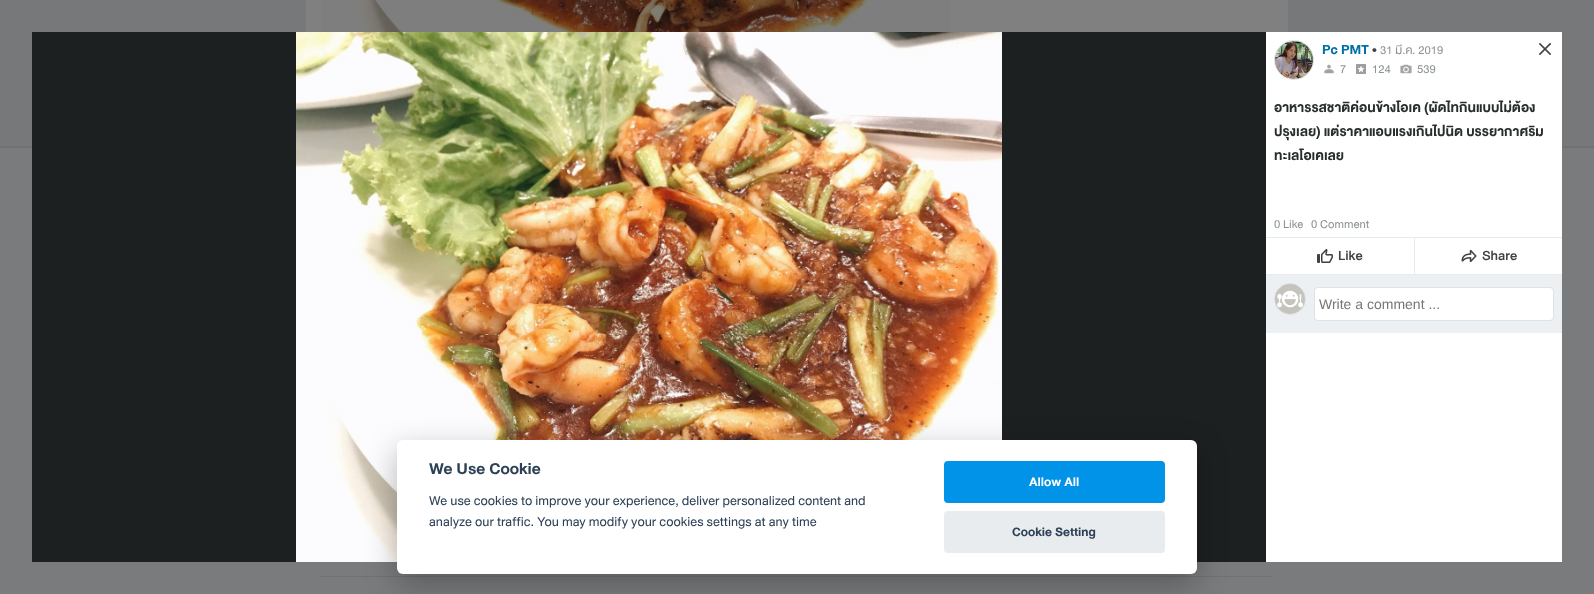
async function draw(canvas) {
	canvas.width = 1594;
	canvas.height = 594;
	const c = canvas.getContext('2d');
	c.miterLimit = 4;
	c.fontKerning = 'normal';
	async function loadImage(src) {
		const img = new Image();
		img.src = src;
		await img.decode();
		return img;
	}

	c.fillStyle = '#7a7b7c';
	c.fillRect(0, 0, 1594, 594);
	c.fillStyle = '#777879';
	c.fillRect(0, 0, 1594, 146);
	c.fillStyle = '#808080';
	c.fillRect(306, 0, 982, 32);
	c.drawImage(await loadImage('img1.png'), 322, 0, 628, 32);
	for (const [x, y, w, h, color] of [
		[0, 146, 1594, 2, '#6f7172'],
		[321, 576, 952, 1, '#6f7172'],
		[1266, 32, 296, 530, '#fff'],
		[32, 32, 1234, 530, '#1d2021'],
	]) {
		c.fillStyle = color;
		c.fillRect(x, y, w, h);
	}
	c.drawImage(await loadImage('img2.png'), 296, 32, 706, 530);
	c.fillStyle = '#edf0f2';
	c.beginPath();
	c.arc(1294, 60, 19.5, 0, 2 * Math.PI);
	c.fill();
	c.strokeStyle = '#dee2e4';
	c.stroke();
	c.drawImage(await loadImage('img3.png'), 1275, 41, 38, 38);
	c.font = 'bold 14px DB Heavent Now';
	c.fillStyle = '#0070a8';
	c.fillText('Pc PMT', 1322, 54);
	c.font = '14px DB Heavent Now';
	c.fillStyle = '#3d4245';
	c.fillText('•', 1372, 54);
	c.font = '12px DB Heavent Now';
	c.fillStyle = '#8c9396';
	c.fillText('31 มี.ค. 2019', 1380, 54);
	c.drawImage(await loadImage('img4.png'), 1324, 64, 10, 10);
	c.fillText('7', 1340, 73);
	c.drawImage(await loadImage('img5.png'), 1356, 64, 10, 10);
	c.fillText('124', 1372, 73);
	c.drawImage(await loadImage('img6.png'), 1400, 64, 12, 10);
	c.fillText('539', 1417, 73);
	c.font = 'bold 14px DB Heavent Now';
	c.fillStyle = '#282d2e';
	for (const [text, x, y] of [
		['อาหารรสชาติค่อนข้างโอเค (ผัดไทกินแบบไม่ต้อง', 1274, 112],
		['ปรุงเลย) แต่ราคาแอบแรงเกินไปนิด บรรยากาศริม', 1274, 136],
		['ทะเลโอเคเลย', 1274, 160],
	]) {
		c.fillText(text, x, y);
	}
	c.font = '12px DB Heavent Now';
	c.fillStyle = '#8c9396';
	c.fillText('0 Like', 1274, 228);
	c.fillText('0 Comment', 1311, 228);
	c.fillStyle = '#e9ecee';
	c.fillRect(1266, 237, 296, 38);
	c.fillStyle = '#fff';
	c.fillRect(1266, 238, 148, 36);
	c.drawImage(await loadImage('img7.png'), 1317, 249, 16, 14);
	c.font = '500 14px DB Heavent Now';
	c.fillStyle = '#3d4245';
	c.fillText('Like', 1338, 260);
	c.fillStyle = '#fff';
	c.fillRect(1415, 238, 147, 36);
	c.drawImage(await loadImage('img8.png'), 1461, 249, 16, 14);
	c.fillStyle = '#3d4245';
	c.fillText('Share', 1482, 260);
	c.fillStyle = '#edf0f2';
	c.fillRect(1266, 275, 296, 58);
	c.beginPath();
	c.arc(1290, 299, 15.5, 0, 2 * Math.PI);
	c.stroke();
	c.drawImage(await loadImage('img9.png'), 1275, 284, 30, 30);
	c.fillStyle = '#fff';
	c.beginPath();
	c.roundRect(1314.5, 287.5, 239, 33, 3.5);
	c.fill();
	c.stroke();
	c.font = '14px Liberation Sans';
	c.fillStyle = '#757575';
	c.fillText('Write a comment ...', 1319, 309);
	c.drawImage(await loadImage('img10.png'), 1539, 43, 12, 12);
	c.fillStyle = '#02020347';
	c.filter = 'blur(15px)';
	c.beginPath();
	c.roundRect(397, 450, 800, 134, 6);
	c.fill();
	c.filter = 'none';
	c.fillStyle = '#fff';
	c.beginPath();
	c.roundRect(397, 440, 800, 134, 6);
	c.fill();
	c.font = 'bold 16.75px DB Heavent Now';
	c.fillStyle = '#2d4156';
	c.fillText('We Use Cookie', 429, 474);
	c.font = '13.6px DB Heavent Now';
	c.fillText('We use cookies to improve your experience, deliver personalized content and', 429, 505);
	c.fillText('analyze our traffic. You may modify your cookies settings at any time', 429, 526);
	c.fillStyle = '#0093e8';
	c.beginPath();
	c.roundRect(944, 461, 221, 42, 4);
	c.fill();
	c.font = 'bold 13px DB Heavent Now';
	c.fillStyle = '#fff';
	c.fillText('Allow All', 1029, 486);
	c.fillStyle = '#e9ecee';
	c.beginPath();
	c.roundRect(944, 511, 221, 42, 4);
	c.fill();
	c.fillStyle = '#2d4156';
	c.fillText('Cookie Setting', 1012, 536);
}

draw(document.querySelector('canvas'));
